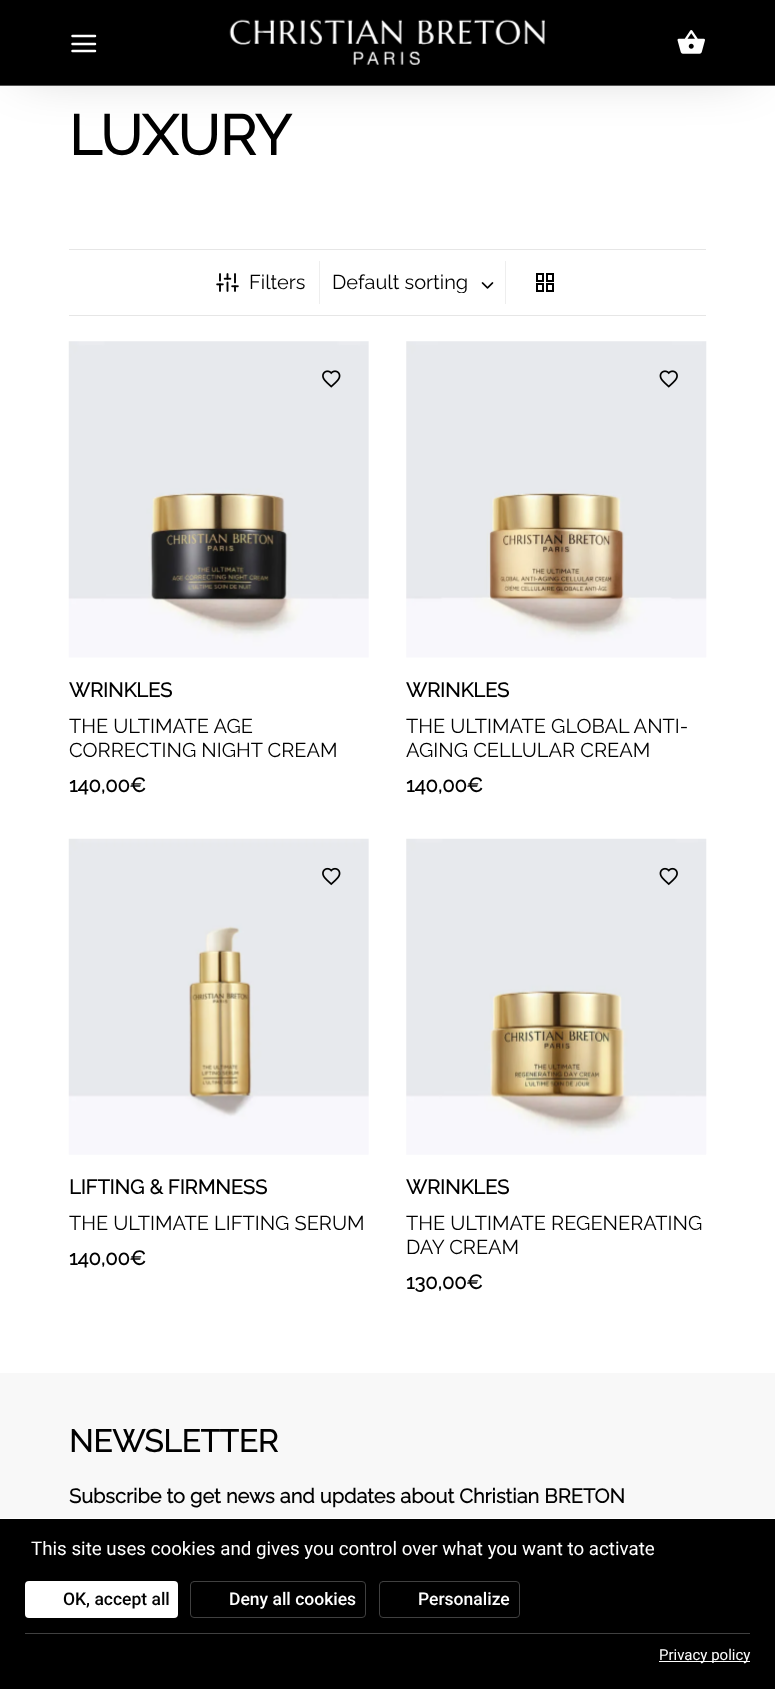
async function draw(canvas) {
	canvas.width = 775;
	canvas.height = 1689;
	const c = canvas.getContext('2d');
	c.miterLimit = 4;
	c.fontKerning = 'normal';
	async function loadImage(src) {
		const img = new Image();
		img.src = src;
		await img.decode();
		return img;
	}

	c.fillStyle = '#fff';
	c.fillRect(0, 0, 775, 1689);
	c.fillStyle = '#0000004d';
	c.filter = 'blur(28px)';
	c.beginPath();
	c.rect(23, 28, 725, 36);
	c.fill();
	c.filter = 'none';
	c.fillStyle = '#000';
	c.fillRect(0, 0, 775, 85);
	c.fillStyle = '#545454';
	c.fillRect(0, 85, 775, 1);
	c.beginPath();
	c.moveTo(72.5, 44);
	c.lineTo(95, 44);
	c.moveTo(72.5, 36);
	c.lineTo(95, 36);
	c.moveTo(72.5, 51);
	c.lineTo(95, 51);
	c.strokeStyle = '#fff';
	c.lineWidth = 2.5;
	c.lineCap = 'round';
	c.lineJoin = 'round';
	c.stroke();
	c.drawImage(await loadImage('img1.png'), 229, 19, 316, 46);
	c.drawImage(await loadImage('img2.png'), 677, 30, 28, 24);
	c.font = 'bold 56px Raleway';
	c.fillStyle = '#000';
	c.fillText('LUXURY', 69, 155);
	for (const [x, y, w, h, color] of [
		[69, 249, 637, 1, '#e6e6e6'],
		[69, 315, 637, 1, '#e6e6e6'],
		[319, 261, 1, 43, '#eee'],
	]) {
		c.fillStyle = color;
		c.fillRect(x, y, w, h);
	}
	c.drawImage(await loadImage('img3.png'), 216, 273, 23, 19);
	c.font = '100 20px Raleway';
	c.fillStyle = '#000';
	c.fillText('Filters', 249, 289);
	c.save();
	c.beginPath();
	c.rect(333, 273, 166, 20);
	c.clip();
	c.fillText('Default sorting', 332, 289);
	c.restore();
	c.drawImage(await loadImage('img4.png'), 481, 282, 13, 7);
	c.fillStyle = '#eee';
	c.fillRect(505, 261, 1, 43);
	c.strokeStyle = '#000';
	c.lineWidth = 2;
	c.lineJoin = 'miter';
	c.strokeRect(537, 274, 6, 7);
	c.strokeRect(547, 274, 6, 7);
	c.strokeRect(537, 284, 6, 7);
	c.strokeRect(547, 284, 6, 7);
	c.drawImage(await loadImage('img5.png'), 68, 341, 301, 317);
	c.drawImage(await loadImage('img6.png'), 322, 370, 19, 18);
	c.font = 'bold 20px Raleway';
	c.fillStyle = '#000';
	c.fillText('WRINKLES', 69, 697);
	c.font = '100 20px Raleway';
	c.fillText('THE ULTIMATE AGE', 69, 733);
	c.fillText('CORRECTING NIGHT CREAM', 69, 757);
	c.font = 'bold 20px Raleway';
	c.fillText('140,00€', 69, 792);
	c.drawImage(await loadImage('img7.png'), 406, 341, 301, 317);
	c.drawImage(await loadImage('img8.png'), 659, 370, 19, 18);
	c.fillText('WRINKLES', 406, 697);
	c.font = '100 20px Raleway';
	c.fillText('THE ULTIMATE GLOBAL ANTI-', 406, 733);
	c.fillText('AGING CELLULAR CREAM', 406, 757);
	c.font = 'bold 20px Raleway';
	c.fillText('140,00€', 406, 792);
	c.drawImage(await loadImage('img9.png'), 68, 838, 301, 317);
	c.drawImage(await loadImage('img10.png'), 322, 867, 19, 19);
	c.fillText('LIFTING & FIRMNESS', 69, 1194);
	c.font = '100 20px Raleway';
	c.fillText('THE ULTIMATE LIFTING SERUM', 69, 1230);
	c.font = 'bold 20px Raleway';
	c.fillText('140,00€', 69, 1265);
	c.drawImage(await loadImage('img11.png'), 406, 838, 301, 317);
	c.drawImage(await loadImage('img12.png'), 659, 867, 19, 19);
	c.fillText('WRINKLES', 406, 1194);
	c.font = '100 20px Raleway';
	c.fillText('THE ULTIMATE REGENERATING', 406, 1230);
	c.fillText('DAY CREAM', 406, 1254);
	c.font = 'bold 20px Raleway';
	c.fillText('130,00€', 406, 1289);
	c.fillStyle = '#f8f8f8';
	c.fillRect(0, 1373, 775, 145);
	c.font = 'bold 31.25px Raleway';
	c.fillStyle = '#000';
	c.fillText('NEWSLETTER', 69, 1452);
	c.font = 'bold 20px Raleway';
	c.fillText('Subscribe to get news and updates about Christian BRETON', 69, 1503);
	c.fillRect(0, 1519, 775, 170);
	c.font = '18.75px Roboto';
	c.fillStyle = '#fff';
	c.fillText('This site uses cookies and gives you control over what you want to activate', 31, 1555);
	c.beginPath();
	c.roundRect(25, 1581, 153, 37, 4);
	c.fill();
	c.font = '500 17.5px Roboto';
	c.fillStyle = '#000';
	c.fillText('OK, accept all', 63, 1605);
	c.beginPath();
	c.roundRect(190.5, 1581.5, 175, 36, 3.5);
	c.strokeStyle = '#404040';
	c.lineWidth = 1;
	c.stroke();
	c.fillStyle = '#fff';
	c.fillText('Deny all cookies', 229, 1605);
	c.beginPath();
	c.roundRect(379.5, 1581.5, 140, 36, 3.5);
	c.stroke();
	c.fillText('Personalize', 418, 1605);
	c.fillStyle = '#404040';
	c.fillRect(25, 1633, 725, 1);
	c.fillStyle = '#fff';
	c.fillRect(659, 1661, 91, 1);
	c.font = '15px Roboto';
	c.fillText('Privacy policy', 659, 1660);
}

draw(document.querySelector('canvas'));
